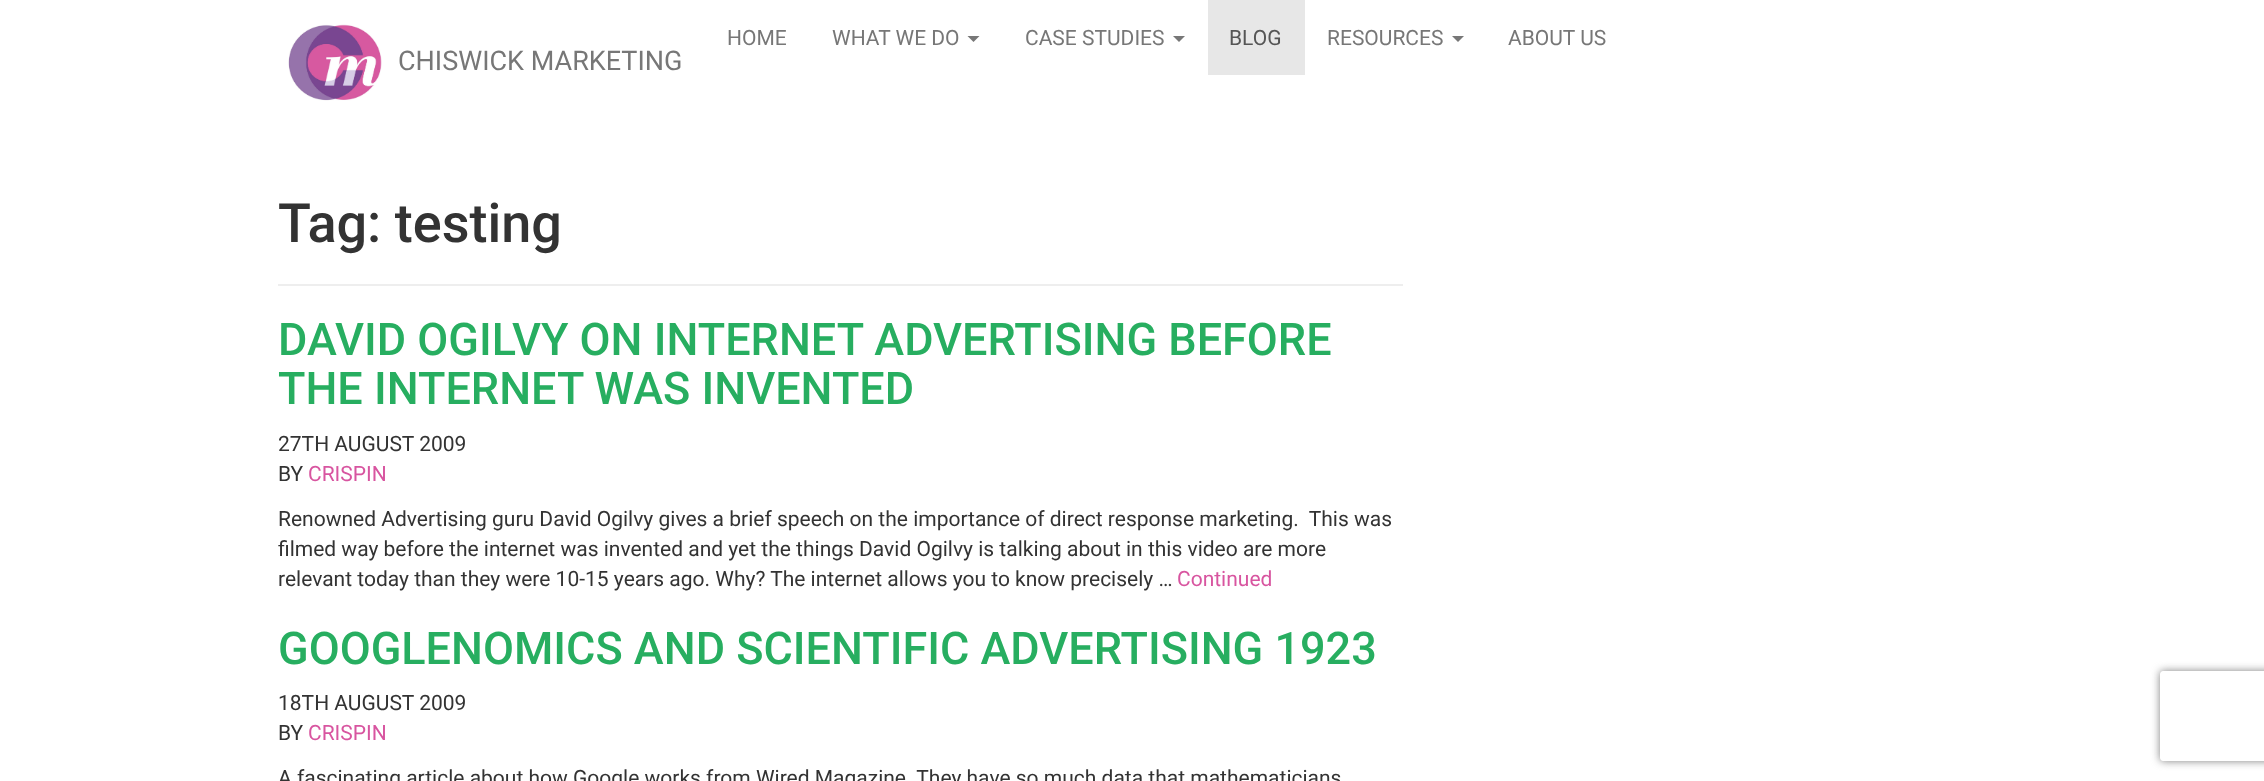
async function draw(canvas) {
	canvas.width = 2264;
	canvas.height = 781;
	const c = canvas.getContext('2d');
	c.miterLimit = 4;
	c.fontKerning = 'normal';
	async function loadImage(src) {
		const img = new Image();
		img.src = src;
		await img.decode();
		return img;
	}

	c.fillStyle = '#fff';
	c.fillRect(0, 0, 2264, 781);
	c.font = '21px Roboto';
	c.fillStyle = '#777';
	c.fillText('HOME', 727, 45);
	c.fillText('WHAT WE DO', 832, 45);
	c.beginPath();
	c.moveTo(967.5, 36);
	c.lineTo(979.5, 36);
	c.lineTo(973.5, 42);
	c.closePath();
	c.fill();
	c.fillText('CASE STUDIES', 1025, 45);
	c.beginPath();
	c.moveTo(1173, 36);
	c.lineTo(1185, 36);
	c.lineTo(1179, 42);
	c.closePath();
	c.fill();
	c.fillStyle = '#e7e7e7';
	c.fillRect(1208, 0, 97, 75);
	c.fillStyle = '#555';
	c.fillText('BLOG', 1229, 45);
	c.fillStyle = '#777';
	c.fillText('RESOURCES', 1327, 45);
	c.beginPath();
	c.moveTo(1452, 36);
	c.lineTo(1464, 36);
	c.lineTo(1458, 42);
	c.closePath();
	c.fill();
	c.fillText('ABOUT US', 1508, 45);
	c.drawImage(await loadImage('img1.png'), 288, 24, 94, 77);
	c.font = '27px Roboto';
	c.fillText('CHISWICK MARKETING', 398, 70);
	c.fillStyle = '#eee';
	c.fillRect(278, 284, 1125, 2);
	c.font = '500 54px Roboto';
	c.fillStyle = '#333';
	c.fillText('Tag: testing', 278, 242);
	c.font = '500 45px Roboto';
	c.fillStyle = '#27ae60';
	c.fillText('DAVID OGILVY ON INTERNET ADVERTISING BEFORE', 278, 355);
	c.fillText('THE INTERNET WAS INVENTED', 278, 404);
	c.font = '21px Roboto';
	c.fillStyle = '#333';
	c.fillText('27TH AUGUST 2009', 278, 451);
	c.fillText('BY', 278, 481);
	c.fillStyle = '#d855a0';
	c.fillText('CRISPIN', 308, 481);
	c.fillStyle = '#333';
	for (const [text, x, y] of [
		['Renowned Advertising guru David Ogilvy gives a brief speech on the importance of direct response marketing.  This was', 278, 526],
		['filmed way before the internet was invented and yet the things David Ogilvy is talking about in this video are more', 278, 556],
		['relevant today than they were 10-15 years ago. Why? The internet allows you to know precisely …', 278, 586],
	]) {
		c.fillText(text, x, y);
	}
	c.fillStyle = '#d855a0';
	c.fillText('Continued', 1177, 586);
	c.font = '500 45px Roboto';
	c.fillStyle = '#27ae60';
	c.fillText('GOOGLENOMICS AND SCIENTIFIC ADVERTISING 1923', 278, 664);
	c.font = '21px Roboto';
	c.fillStyle = '#333';
	c.fillText('18TH AUGUST 2009', 278, 710);
	c.fillText('BY', 278, 740);
	c.fillStyle = '#d855a0';
	c.fillText('CRISPIN', 308, 740);
	c.fillStyle = '#333';
	c.fillText('A fascinating article about how Google works from Wired Magazine. They have so much data that mathematicians', 278, 785);
	c.save();
	c.beginPath();
	c.moveTo(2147, 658);
	c.lineTo(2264, 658);
	c.lineTo(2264, 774);
	c.lineTo(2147, 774);
	c.closePath();
	c.moveTo(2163, 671);
	c.lineTo(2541, 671);
	c.bezierCurveTo(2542.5, 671, 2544, 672.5, 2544, 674);
	c.lineTo(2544, 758);
	c.bezierCurveTo(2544, 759.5, 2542.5, 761, 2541, 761);
	c.lineTo(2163, 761);
	c.bezierCurveTo(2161.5, 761, 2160, 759.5, 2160, 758);
	c.lineTo(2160, 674);
	c.bezierCurveTo(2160, 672.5, 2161.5, 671, 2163, 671);
	c.closePath();
	c.clip('evenodd');
	c.fillStyle = '#808080';
	c.filter = 'blur(4px)';
	c.beginPath();
	c.roundRect(2160, 671, 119, 90, 3);
	c.fill();
	c.filter = 'none';
	c.restore();
}

draw(document.querySelector('canvas'));
